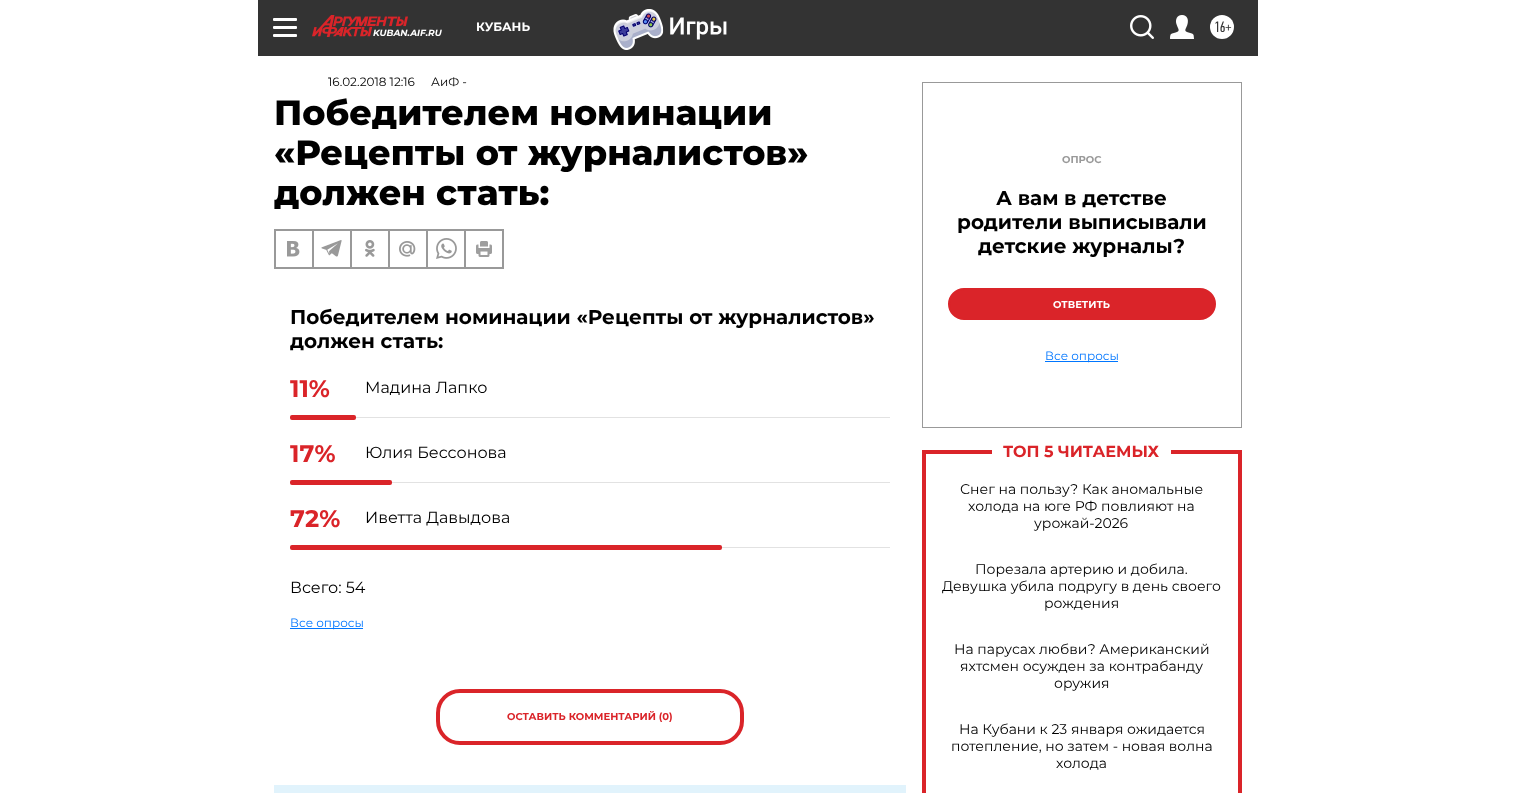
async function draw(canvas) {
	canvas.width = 1515;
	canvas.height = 793;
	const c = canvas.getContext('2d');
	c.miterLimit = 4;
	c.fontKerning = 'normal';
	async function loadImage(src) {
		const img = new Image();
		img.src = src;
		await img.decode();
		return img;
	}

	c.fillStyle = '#fff';
	c.fillRect(0, 0, 1515, 793);
	c.fillStyle = '#333';
	c.fillRect(258, 0, 1000, 56);
	c.fillStyle = '#fff';
	c.beginPath();
	c.roundRect(273, 18, 24, 3, 1);
	c.fill();
	c.beginPath();
	c.roundRect(273, 26, 24, 3, 1);
	c.fill();
	c.beginPath();
	c.roundRect(273, 34, 24, 3, 1);
	c.fill();
	c.font = 'bold 12px Montserrat';
	c.fillText('КУБАНЬ', 476, 31);
	c.drawImage(await loadImage('img1.png'), 613, 9, 114, 41);
	c.drawImage(await loadImage('img2.png'), 1130, 15, 24, 24);
	c.drawImage(await loadImage('img3.png'), 1170, 15, 24, 24);
	c.beginPath();
	c.arc(1222, 27, 12, 0, 2 * Math.PI);
	c.fill();
	c.font = '15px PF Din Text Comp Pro';
	c.fillStyle = '#333';
	c.fillText('16+', 1214, 32);
	c.drawImage(await loadImage('img4.png'), 312, 15, 96, 22);
	c.font = 'italic bold 9px Montserrat';
	c.fillStyle = '#fff';
	c.fillText('KUBAN.AIF.RU', 373, 36);
	c.font = '12px Montserrat';
	c.fillStyle = '#000';
	c.fillText('16.02.2018 12:16', 328, 86);
	c.fillText('АиФ -', 431, 86);
	c.font = '800 35px Montserrat';
	for (const [text, x, y] of [
		['Победителем номинации', 274, 125],
		['«Рецепты от журналистов»', 274, 165],
		['должен стать:', 274, 205],
	]) {
		c.fillText(text, x, y);
	}
	c.strokeStyle = '#999';
	c.strokeRect(274.5, 229.5, 229, 39);
	c.strokeRect(275.5, 230.5, 37, 37);
	c.drawImage(await loadImage('img5.png'), 287, 241, 13, 16);
	c.strokeRect(313.5, 230.5, 37, 37);
	c.drawImage(await loadImage('img6.png'), 321, 240, 21, 17);
	c.strokeRect(351.5, 230.5, 37, 37);
	c.drawImage(await loadImage('img7.png'), 365, 240, 10, 17);
	c.strokeRect(389.5, 230.5, 37, 37);
	c.drawImage(await loadImage('img8.png'), 399, 241, 17, 16);
	c.strokeRect(427.5, 230.5, 37, 37);
	c.drawImage(await loadImage('img9.png'), 436, 238, 21, 21);
	c.strokeRect(465.5, 230.5, 37, 37);
	c.drawImage(await loadImage('img10.png'), 476, 241, 16, 16);
	c.font = 'bold 20px Montserrat';
	c.fillText('Победителем номинации «Рецепты от журналистов»', 290, 324);
	c.save();
	c.beginPath();
	c.rect(290, 305, 600, 267);
	c.clip();
	c.fillText('должен стать:', 290, 348);
	c.restore();
	c.save();
	c.beginPath();
	c.rect(290, 369, 600, 40);
	c.clip();
	c.font = 'bold 24px Montserrat';
	c.fillStyle = '#da2429';
	c.fillText('11%', 290, 397);
	c.restore();
	c.font = '16px Montserrat';
	c.fillText('Мадина Лапко', 365, 393);
	c.fillStyle = '#e2e2e2';
	c.fillRect(356, 417, 534, 1);
	c.fillStyle = '#da2429';
	c.beginPath();
	c.roundRect(290, 415, 66, 5, 2);
	c.fill();
	c.save();
	c.beginPath();
	c.rect(290, 434, 600, 40);
	c.clip();
	c.font = 'bold 24px Montserrat';
	c.fillText('17%', 290, 462);
	c.restore();
	c.fillStyle = '#000';
	c.fillText('Юлия Бессонова', 365, 458);
	c.fillStyle = '#e2e2e2';
	c.fillRect(392, 482, 498, 1);
	c.fillStyle = '#da2429';
	c.beginPath();
	c.roundRect(290, 480, 102, 5, 2);
	c.fill();
	c.font = 'bold 24px Montserrat';
	c.fillText('72%', 290, 527);
	c.font = '16px Montserrat';
	c.fillStyle = '#000';
	c.fillText('Иветта Давыдова', 365, 523);
	c.fillStyle = '#e2e2e2';
	c.fillRect(722, 547, 168, 1);
	c.fillStyle = '#da2429';
	c.beginPath();
	c.roundRect(290, 545, 432, 5, 2);
	c.fill();
	c.fillStyle = '#000';
	c.fillText('Всего: 54', 290, 593);
	c.fillStyle = '#0076ff';
	c.fillRect(290, 628, 73, 1);
	c.font = '12px Montserrat';
	c.fillText('Все опросы', 290, 627);
	c.beginPath();
	c.roundRect(438, 691, 304, 52, 22);
	c.strokeStyle = '#da2429';
	c.lineWidth = 4;
	c.stroke();
	c.font = 'bold 10px Montserrat';
	c.fillStyle = '#da2429';
	c.fillText('ОСТАВИТЬ КОММЕНТАРИЙ (0)', 507, 720);
	c.fillStyle = '#e1f3fc';
	c.fillRect(274, 785, 632, 8);
	c.strokeStyle = '#999';
	c.lineWidth = 1;
	c.strokeRect(922.5, 82.5, 319, 345);
	c.fillStyle = '#999';
	c.fillText('ОПРОС', 1062, 163);
	c.font = 'bold 20px Montserrat';
	c.fillStyle = '#000';
	for (const [text, x, y] of [
		['А вам в детстве', 996, 205],
		['родители выписывали', 957, 229],
		['детские журналы?', 978, 253],
	]) {
		c.fillText(text, x, y);
	}
	c.fillStyle = '#da2429';
	c.beginPath();
	c.roundRect(949, 289, 266, 30, 15);
	c.fill();
	c.strokeStyle = '#da2429';
	c.lineWidth = 2;
	c.stroke();
	c.font = 'bold 10px Montserrat';
	c.fillStyle = '#fff';
	c.fillText('ОТВЕТИТЬ', 1053, 308);
	c.fillStyle = '#0076ff';
	c.fillRect(1045, 361, 73, 1);
	c.font = '12px Montserrat';
	c.fillText('Все опросы', 1045, 360);
	c.fillStyle = '#da2429';
	c.fillRect(922, 450, 4, 343);
	c.fillRect(922, 450, 70, 4);
	c.font = 'bold 16px Montserrat';
	c.fillText('ТОП 5 ЧИТАЕМЫХ', 1003, 457);
	c.fillRect(1238, 450, 4, 343);
	c.fillRect(1171, 450, 71, 4);
	c.font = '14px Montserrat';
	c.fillStyle = '#000';
	for (const [text, x, y] of [
		['Снег на пользу? Как аномальные', 960, 494],
		['холода на юге РФ повлияют на', 968, 511],
		['урожай-2026', 1034, 528],
		['Порезала артерию и добила.', 975, 574],
		['Девушка убила подругу в день своего', 942, 591],
		['рождения', 1044, 608],
		['На парусах любви? Американский', 954, 654],
		['яхтсмен осужден за контрабанду', 960, 671],
		['оружия', 1054, 688],
		['На Кубани к 23 января ожидается', 959, 734],
		['потепление, но затем - новая волна', 951, 751],
		['холода', 1056, 768],
	]) {
		c.fillText(text, x, y);
	}
}

draw(document.querySelector('canvas'));
